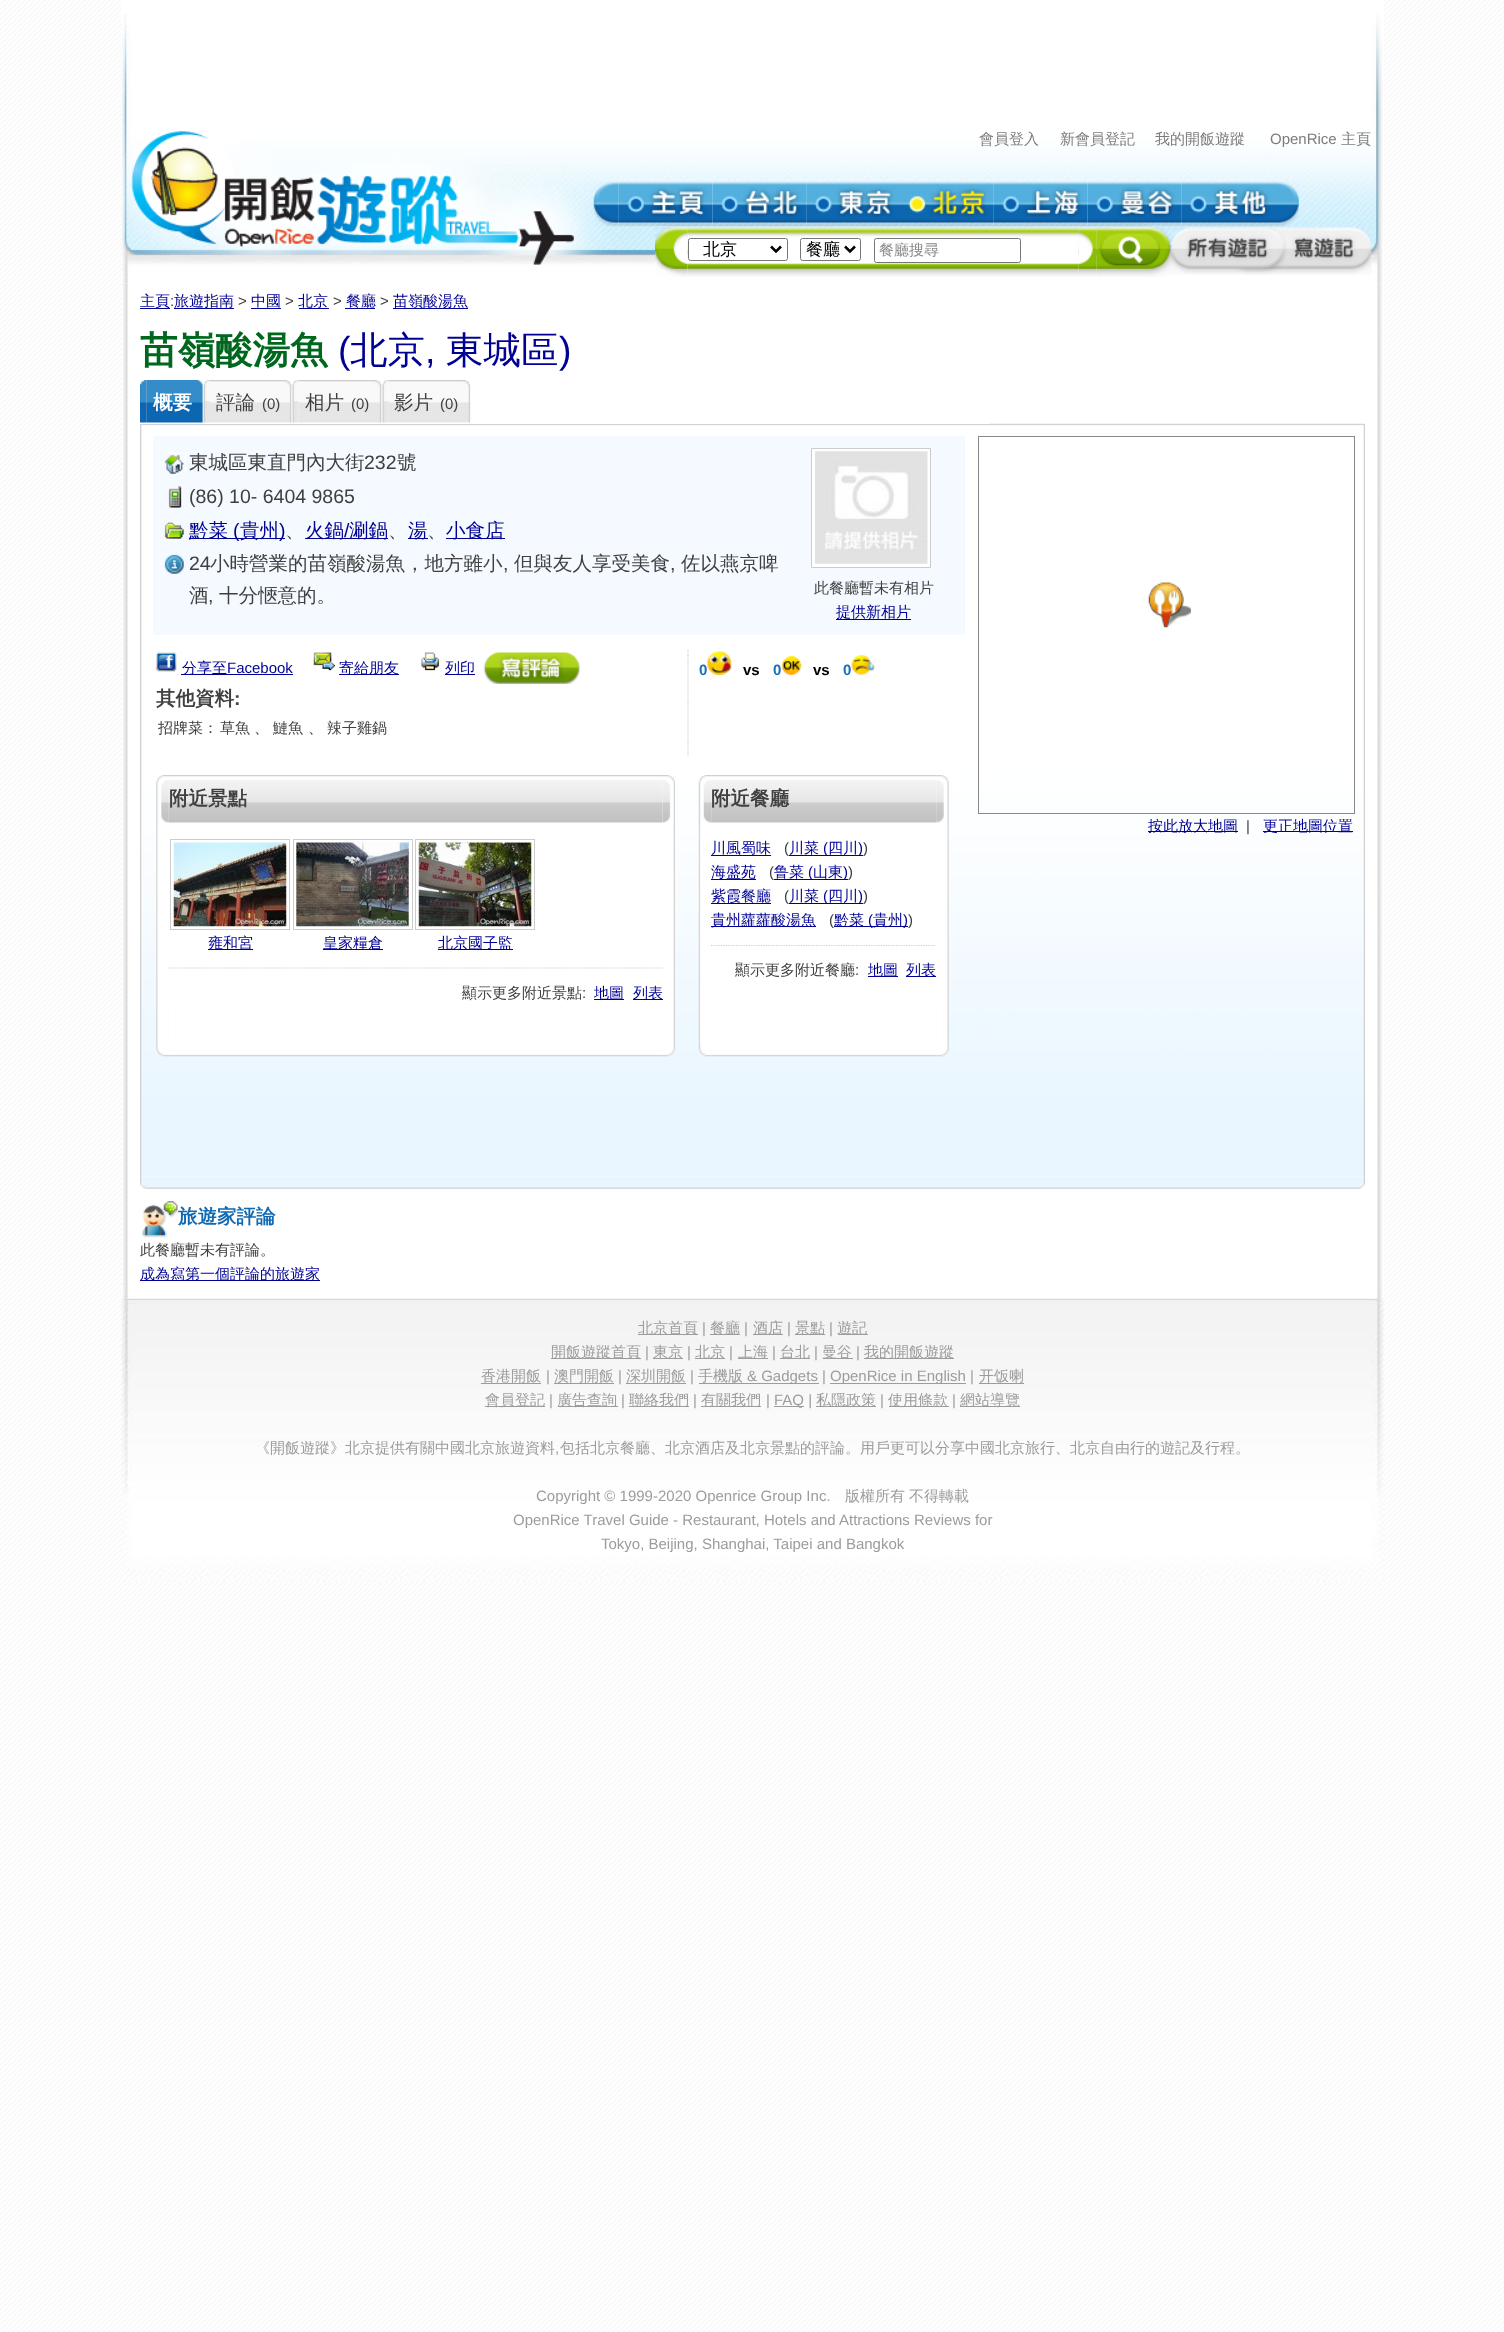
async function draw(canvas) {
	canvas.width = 1504;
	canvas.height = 2332;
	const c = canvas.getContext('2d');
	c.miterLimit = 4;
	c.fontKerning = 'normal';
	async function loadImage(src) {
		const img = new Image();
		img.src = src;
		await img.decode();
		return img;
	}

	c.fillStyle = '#fff';
	c.fillRect(0, 0, 1504, 2332);
	c.drawImage(await loadImage('img1.png'), 0, 0, 1504, 2332);
	c.fillRect(121, 0, 1263, 284);
	c.drawImage(await loadImage('img2.png'), 121, 14, 1262, 270);
	c.drawImage(await loadImage('img3.png'), 131, 131, 443, 134);
	c.font = '500 15px WenQuanYi Zen Hei';
	c.fillStyle = '#7c7c7c';
	for (const [text, x, y] of [
		['會員登入', 979, 144],
		['新會員登記', 1060, 144],
		['我的開飯遊蹤', 1155, 144],
	]) {
		c.fillText(text, x, y);
	}
	c.font = '15px Liberation Sans';
	c.fillText('OpenRice', 1270, 144);
	c.font = '500 15px WenQuanYi Zen Hei';
	c.fillText('主頁', 1341, 144);
	c.drawImage(await loadImage('img4.png'), 593, 181, 26, 46);
	c.drawImage(await loadImage('img5.png'), 618, 181, 95, 46);
	c.drawImage(await loadImage('img6.png'), 712, 181, 95, 46);
	c.drawImage(await loadImage('img7.png'), 806, 181, 94, 46);
	c.drawImage(await loadImage('img8.png'), 900, 181, 94, 46);
	c.drawImage(await loadImage('img9.png'), 993, 181, 95, 46);
	c.drawImage(await loadImage('img10.png'), 1087, 181, 95, 46);
	c.drawImage(await loadImage('img11.png'), 1181, 181, 94, 46);
	c.drawImage(await loadImage('img12.png'), 1275, 181, 24, 46);
	c.drawImage(await loadImage('img14.png'), 687, 227, 392, 50);
	c.drawImage(await loadImage('img13.png'), 655, 227, 33, 50);
	c.beginPath();
	c.roundRect(688.5, 238.5, 99, 22, 2);
	c.strokeStyle = '#767676';
	c.stroke();
	c.beginPath();
	c.moveTo(771, 246.5);
	c.lineTo(776, 251.5);
	c.lineTo(781, 246.5);
	c.strokeStyle = '#000';
	c.lineWidth = 2.5;
	c.stroke();
	c.font = '500 17px WenQuanYi Zen Hei';
	c.fillStyle = '#000';
	c.fillText('北京', 703, 255);
	c.beginPath();
	c.roundRect(800.5, 238.5, 60, 22, 2);
	c.strokeStyle = '#767676';
	c.lineWidth = 1;
	c.stroke();
	c.beginPath();
	c.moveTo(845, 246.5);
	c.lineTo(850, 251.5);
	c.lineTo(855, 246.5);
	c.strokeStyle = '#000';
	c.lineWidth = 2.5;
	c.stroke();
	c.fillText('餐廳', 806, 255);
	c.beginPath();
	c.roundRect(874.5, 238.5, 146, 24, 2);
	c.strokeStyle = '#767676';
	c.lineWidth = 1;
	c.stroke();
	c.font = '500 15px WenQuanYi Zen Hei';
	c.fillStyle = '#888';
	c.fillText('餐廳搜尋', 879, 255);
	c.drawImage(await loadImage('img15.png'), 1078, 227, 19, 50);
	c.drawImage(await loadImage('img16.png'), 1096, 227, 74, 50);
	c.drawImage(await loadImage('img17.png'), 1170, 227, 115, 48);
	c.drawImage(await loadImage('img18.png'), 1285, 227, 87, 48);
	c.drawImage(await loadImage('img19.png'), 122, 284, 1262, 1003);
	c.fillStyle = '#000094';
	c.fillRect(140, 308, 30, 1);
	c.fillText('主頁', 140, 306);
	c.font = '15px Liberation Sans';
	c.fillStyle = '#404040';
	c.fillText(':', 170, 306);
	c.fillStyle = '#000094';
	c.fillRect(174, 308, 60, 1);
	c.font = '500 15px WenQuanYi Zen Hei';
	c.fillText('旅遊指南', 174, 306);
	c.font = '15px Liberation Sans';
	c.fillStyle = '#404040';
	c.fillText('>', 238, 306);
	c.font = '500 15px WenQuanYi Zen Hei';
	c.fillStyle = '#000094';
	c.fillText('中國', 251, 306);
	c.fillRect(251, 308, 30, 1);
	c.font = '15px Liberation Sans';
	c.fillStyle = '#404040';
	c.fillText('>', 285, 306);
	c.font = '500 15px WenQuanYi Zen Hei';
	c.fillStyle = '#000094';
	c.fillText('北京', 298, 306);
	c.fillRect(299, 308, 30, 1);
	c.font = '15px Liberation Sans';
	c.fillStyle = '#404040';
	c.fillText('>', 333, 306);
	c.font = '500 15px WenQuanYi Zen Hei';
	c.fillStyle = '#000094';
	c.fillText('餐廳', 346, 306);
	c.fillRect(345, 308, 30, 1);
	c.font = '15px Liberation Sans';
	c.fillStyle = '#404040';
	c.fillText('>', 380, 306);
	c.fillStyle = '#000094';
	c.fillRect(393, 308, 75, 1);
	c.font = '500 15px WenQuanYi Zen Hei';
	c.fillText('苗嶺酸湯魚', 393, 306);
	c.font = 'bold 37.5px WenQuanYi Zen Hei';
	c.fillStyle = '#00681e';
	c.fillText('苗嶺酸湯魚', 140, 363);
	c.font = '37.5px Liberation Sans';
	c.fillStyle = '#000094';
	c.fillText('(', 338, 363);
	c.font = '500 37.5px WenQuanYi Zen Hei';
	c.fillText('北京', 350, 363);
	c.font = '37.5px Liberation Sans';
	c.fillText(',', 425, 363);
	c.font = '500 37.5px WenQuanYi Zen Hei';
	c.fillText('東城區', 446, 363);
	c.font = '37.5px Liberation Sans';
	c.fillText(')', 559, 363);
	c.drawImage(await loadImage('img27.png'), 140, 423, 1225, 14);
	c.fillStyle = '#fff';
	c.fillRect(140, 423, 850, 1);
	c.drawImage(await loadImage('img20.png'), 140, 380, 7, 43);
	c.drawImage(await loadImage('img21.png'), 146, 380, 58, 43);
	c.font = 'bold 19.5px WenQuanYi Zen Hei';
	c.fillText('概要', 153, 409);
	c.drawImage(await loadImage('img22.png'), 203, 380, 7, 43);
	c.drawImage(await loadImage('img23.png'), 210, 380, 82, 43);
	c.font = '500 19.5px WenQuanYi Zen Hei';
	c.fillStyle = '#404040';
	c.fillText('評論', 216, 409);
	c.font = '15px Liberation Sans';
	c.fillText('(0)', 262, 409);
	c.drawImage(await loadImage('img24.png'), 292, 380, 7, 43);
	c.drawImage(await loadImage('img25.png'), 298, 380, 84, 43);
	c.font = '500 19.5px WenQuanYi Zen Hei';
	c.fillText('相片', 305, 409);
	c.font = '15px Liberation Sans';
	c.fillText('(0)', 351, 409);
	c.drawImage(await loadImage('img24.png'), 382, 380, 7, 43);
	c.drawImage(await loadImage('img26.png'), 388, 380, 83, 43);
	c.font = '500 19.5px WenQuanYi Zen Hei';
	c.fillText('影片', 394, 409);
	c.font = '15px Liberation Sans';
	c.fillText('(0)', 440, 409);
	c.drawImage(await loadImage('img28.png'), 140, 436, 1225, 741);
	c.fillStyle = '#f4faff';
	c.fillRect(153, 436, 812, 199);
	c.drawImage(await loadImage('img29.png'), 164, 452, 22, 23);
	c.font = '500 19.5px WenQuanYi Zen Hei';
	c.fillStyle = '#404040';
	c.fillText('東城區東直門內大街', 189, 469);
	c.font = '19.5px Liberation Sans';
	c.fillText('232', 364, 469);
	c.font = '500 19.5px WenQuanYi Zen Hei';
	c.fillText('號', 397, 469);
	c.drawImage(await loadImage('img30.png'), 168, 486, 14, 22);
	c.font = '19.5px Liberation Sans';
	c.fillText('(86) 10- 6404 9865', 189, 503);
	c.drawImage(await loadImage('img31.png'), 164, 522, 20, 17);
	c.fillStyle = '#000094';
	c.fillRect(189, 538, 96, 1);
	c.font = '500 19.5px WenQuanYi Zen Hei';
	c.fillText('黔菜', 189, 537);
	c.font = '19.5px Liberation Sans';
	c.fillText('(', 233, 537);
	c.font = '500 19.5px WenQuanYi Zen Hei';
	c.fillText('貴州', 240, 537);
	c.font = '19.5px Liberation Sans';
	c.fillText(')', 279, 537);
	c.font = '500 19.5px WenQuanYi Zen Hei';
	c.fillStyle = '#404040';
	c.fillText('、', 285, 537);
	c.fillStyle = '#000094';
	c.fillRect(305, 538, 83, 1);
	c.fillText('火鍋', 305, 537);
	c.font = '19.5px Liberation Sans';
	c.fillText('/', 344, 537);
	c.font = '500 19.5px WenQuanYi Zen Hei';
	c.fillText('涮鍋', 349, 537);
	c.fillStyle = '#404040';
	c.fillText('、', 388, 537);
	c.fillStyle = '#000094';
	c.fillRect(408, 538, 20, 1);
	c.fillText('湯', 408, 537);
	c.fillStyle = '#404040';
	c.fillText('、', 427, 537);
	c.fillStyle = '#000094';
	c.fillRect(446, 538, 59, 1);
	c.fillText('小食店', 446, 537);
	c.drawImage(await loadImage('img32.png'), 164, 554, 20, 20);
	c.font = '19.5px Liberation Sans';
	c.fillStyle = '#404040';
	c.fillText('24', 189, 570);
	c.font = '500 19.5px WenQuanYi Zen Hei';
	c.fillText('小時營業的苗嶺酸湯魚，地方雖小', 210, 570);
	c.font = '19.5px Liberation Sans';
	c.fillText(',', 503, 570);
	c.font = '500 19.5px WenQuanYi Zen Hei';
	c.fillText('但與友人享受美食', 514, 570);
	c.font = '19.5px Liberation Sans';
	c.fillText(',', 670, 570);
	c.font = '500 19.5px WenQuanYi Zen Hei';
	c.fillText('佐以燕京啤', 681, 570);
	c.fillText('酒', 189, 602);
	c.font = '19.5px Liberation Sans';
	c.fillText(',', 208, 602);
	c.font = '500 19.5px WenQuanYi Zen Hei';
	c.fillText('十分愜意的。', 219, 602);
	c.fillStyle = '#fff';
	c.beginPath();
	c.rect(811.5, 448.5, 119, 119);
	c.fill();
	c.strokeStyle = '#ccc';
	c.stroke();
	c.drawImage(await loadImage('img33.png'), 815, 451, 113, 113);
	c.font = '500 15px WenQuanYi Zen Hei';
	c.fillStyle = '#404040';
	c.fillText('此餐廳暫未有相片', 814, 593);
	c.fillStyle = '#000094';
	c.fillRect(836, 619, 75, 1);
	c.fillText('提供新相片', 836, 617);
	c.beginPath();
	c.moveTo(688, 650);
	c.lineTo(688, 756);
	c.lineWidth = 1.2;
	c.setLineDash([1.25, 1.25]);
	c.stroke();
	c.drawImage(await loadImage('img34.png'), 156, 652, 21, 20);
	c.fillRect(181, 674, 112, 1);
	c.fillText('分享至', 182, 673);
	c.font = '15px Liberation Sans';
	c.fillText('Facebook', 227, 673);
	c.drawImage(await loadImage('img35.png'), 313, 652, 22, 19);
	c.fillRect(339, 674, 60, 1);
	c.font = '500 15px WenQuanYi Zen Hei';
	c.fillText('寄給朋友', 339, 673);
	c.drawImage(await loadImage('img36.png'), 421, 652, 18, 19);
	c.fillRect(445, 674, 30, 1);
	c.fillText('列印', 445, 673);
	c.drawImage(await loadImage('img37.png'), 483, 652, 97, 32);
	c.font = 'bold 19.5px WenQuanYi Zen Hei';
	c.fillStyle = '#404040';
	c.fillText('其他資料', 156, 705);
	c.font = 'bold 19.5px Liberation Sans';
	c.fillText(':', 234, 705);
	c.font = '500 15px WenQuanYi Zen Hei';
	for (const [text, x, y] of [
		['招牌菜：', 158, 733],
		['草魚', 220, 733],
		['、', 254, 733],
		['鰱魚', 273, 733],
		['、', 308, 733],
		['辣子雞鍋', 327, 733],
	]) {
		c.fillText(text, x, y);
	}
	c.font = 'bold 15px Liberation Sans';
	c.fillStyle = '#186eb8';
	c.fillText('0', 699, 675);
	c.drawImage(await loadImage('img38.png'), 707, 651, 25, 24);
	c.fillStyle = '#000';
	c.fillText('vs', 743, 675);
	c.fillStyle = '#186eb8';
	c.fillText('0', 773, 675);
	c.drawImage(await loadImage('img39.png'), 781, 656, 21, 19);
	c.fillStyle = '#000';
	c.fillText('vs', 813, 675);
	c.fillStyle = '#186eb8';
	c.fillText('0', 843, 675);
	c.drawImage(await loadImage('img40.png'), 851, 655, 24, 20);
	c.drawImage(await loadImage('img42.png'), 168, 775, 495, 48);
	c.drawImage(await loadImage('img41.png'), 156, 775, 13, 50);
	c.font = 'bold 19.5px WenQuanYi Zen Hei';
	c.fillStyle = '#404040';
	c.fillText('附近景點', 169, 805);
	c.drawImage(await loadImage('img43.png'), 662, 775, 13, 50);
	c.drawImage(await loadImage('img44.png'), 156, 825, 13, 219);
	c.fillStyle = '#fff';
	c.fillRect(169, 825, 494, 219);
	c.lineWidth = 1;
	c.setLineDash([]);
	c.strokeRect(170.5, 839.5, 119, 90);
	c.drawImage(await loadImage('img45.png'), 173, 842, 114, 85);
	c.fillStyle = '#000094';
	c.fillRect(208, 949, 45, 1);
	c.font = '500 15px WenQuanYi Zen Hei';
	c.fillText('雍和宮', 208, 948);
	c.strokeRect(293.5, 839.5, 119, 90);
	c.drawImage(await loadImage('img46.png'), 296, 842, 113, 85);
	c.fillRect(323, 949, 60, 1);
	c.fillText('皇家糧倉', 323, 948);
	c.strokeRect(415.5, 839.5, 119, 90);
	c.drawImage(await loadImage('img47.png'), 418, 842, 114, 85);
	c.fillRect(438, 949, 75, 1);
	c.fillText('北京國子監', 438, 948);
	c.beginPath();
	c.moveTo(169, 968);
	c.lineTo(662.5, 968);
	c.lineWidth = 1.2;
	c.setLineDash([1.25, 1.25]);
	c.stroke();
	c.fillStyle = '#404040';
	c.fillText('顯示更多附近景點', 462, 998);
	c.font = '15px Liberation Sans';
	c.fillText(':', 582, 998);
	c.fillStyle = '#000094';
	c.fillRect(594, 999, 30, 1);
	c.font = '500 15px WenQuanYi Zen Hei';
	c.fillText('地圖', 594, 998);
	c.fillRect(633, 999, 30, 1);
	c.fillText('列表', 633, 998);
	c.drawImage(await loadImage('img48.png'), 663, 825, 12, 219);
	c.drawImage(await loadImage('img50.png'), 168, 1044, 495, 13);
	c.drawImage(await loadImage('img49.png'), 156, 1044, 13, 13);
	c.drawImage(await loadImage('img51.png'), 662, 1044, 13, 13);
	c.drawImage(await loadImage('img53.png'), 711, 775, 226, 48);
	c.drawImage(await loadImage('img52.png'), 698, 775, 14, 50);
	c.font = 'bold 19.5px WenQuanYi Zen Hei';
	c.fillStyle = '#404040';
	c.fillText('附近餐廳', 711, 805);
	c.drawImage(await loadImage('img54.png'), 936, 775, 13, 50);
	c.drawImage(await loadImage('img55.png'), 698, 825, 13, 219);
	c.fillStyle = '#fff';
	c.fillRect(711, 825, 225, 219);
	c.font = '500 15px WenQuanYi Zen Hei';
	c.fillStyle = '#000094';
	c.fillText('川風蜀味', 711, 853);
	c.fillRect(711, 855, 60, 1);
	c.font = '15px Liberation Sans';
	c.fillStyle = '#404040';
	c.fillText('(', 784, 853);
	c.font = '500 15px WenQuanYi Zen Hei';
	c.fillStyle = '#000094';
	c.fillText('川菜', 789, 853);
	c.fillRect(789, 855, 74, 1);
	c.font = '15px Liberation Sans';
	c.fillText('(', 823, 853);
	c.font = '500 15px WenQuanYi Zen Hei';
	c.fillText('四川', 828, 853);
	c.font = '15px Liberation Sans';
	c.fillText(')', 858, 853);
	c.fillStyle = '#404040';
	c.fillText(')', 863, 853);
	c.font = '500 15px WenQuanYi Zen Hei';
	c.fillStyle = '#000094';
	c.fillText('海盛苑', 711, 877);
	c.fillRect(711, 879, 45, 1);
	c.font = '15px Liberation Sans';
	c.fillStyle = '#404040';
	c.fillText('(', 769, 877);
	c.font = '500 15px WenQuanYi Zen Hei';
	c.fillStyle = '#000094';
	c.fillText('鲁菜', 774, 877);
	c.fillRect(774, 879, 74, 1);
	c.font = '15px Liberation Sans';
	c.fillText('(', 808, 877);
	c.font = '500 15px WenQuanYi Zen Hei';
	c.fillText('山東', 813, 877);
	c.font = '15px Liberation Sans';
	c.fillText(')', 843, 877);
	c.fillStyle = '#404040';
	c.fillText(')', 848, 877);
	c.fillStyle = '#000094';
	c.fillRect(711, 903, 60, 1);
	c.font = '500 15px WenQuanYi Zen Hei';
	c.fillText('紫霞餐廳', 711, 901);
	c.font = '15px Liberation Sans';
	c.fillStyle = '#404040';
	c.fillText('(', 784, 901);
	c.font = '500 15px WenQuanYi Zen Hei';
	c.fillStyle = '#000094';
	c.fillText('川菜', 789, 901);
	c.fillRect(789, 903, 74, 1);
	c.font = '15px Liberation Sans';
	c.fillText('(', 823, 901);
	c.font = '500 15px WenQuanYi Zen Hei';
	c.fillText('四川', 828, 901);
	c.font = '15px Liberation Sans';
	c.fillText(')', 858, 901);
	c.fillStyle = '#404040';
	c.fillText(')', 863, 901);
	c.fillStyle = '#000094';
	c.fillRect(711, 926, 105, 1);
	c.font = '500 15px WenQuanYi Zen Hei';
	c.fillText('貴州蘿蘿酸湯魚', 711, 925);
	c.font = '15px Liberation Sans';
	c.fillStyle = '#404040';
	c.fillText('(', 829, 925);
	c.fillStyle = '#000094';
	c.fillRect(834, 926, 74, 1);
	c.font = '500 15px WenQuanYi Zen Hei';
	c.fillText('黔菜', 834, 925);
	c.font = '15px Liberation Sans';
	c.fillText('(', 868, 925);
	c.font = '500 15px WenQuanYi Zen Hei';
	c.fillText('貴州', 873, 925);
	c.font = '15px Liberation Sans';
	c.fillText(')', 903, 925);
	c.fillStyle = '#404040';
	c.fillText(')', 908, 925);
	c.beginPath();
	c.moveTo(711, 945.5);
	c.lineTo(936, 945.5);
	c.stroke();
	c.font = '500 15px WenQuanYi Zen Hei';
	c.fillText('顯示更多附近餐廳', 735, 975);
	c.font = '15px Liberation Sans';
	c.fillText(':', 855, 975);
	c.fillStyle = '#000094';
	c.fillRect(868, 976, 30, 1);
	c.font = '500 15px WenQuanYi Zen Hei';
	c.fillText('地圖', 868, 975);
	c.fillRect(906, 976, 30, 1);
	c.fillText('列表', 906, 975);
	c.drawImage(await loadImage('img56.png'), 936, 825, 13, 219);
	c.drawImage(await loadImage('img57.png'), 698, 1044, 13, 13);
	c.drawImage(await loadImage('img58.png'), 711, 1044, 226, 13);
	c.drawImage(await loadImage('img59.png'), 936, 1044, 13, 13);
	c.strokeStyle = '#888';
	c.lineWidth = 1;
	c.setLineDash([]);
	c.strokeRect(978.5, 436.5, 376, 377);
	c.drawImage(await loadImage('img60.png'), 1148, 582, 44, 46);
	c.fillRect(1148, 831, 90, 1);
	c.fillText('按此放大地圖', 1148, 831);
	c.font = '15px Liberation Sans';
	c.fillStyle = '#404040';
	c.fillText('|', 1246, 831);
	c.fillStyle = '#000094';
	c.fillRect(1263, 831, 90, 1);
	c.font = '500 15px WenQuanYi Zen Hei';
	c.fillText('更正地圖位置', 1263, 831);
	c.drawImage(await loadImage('img61.png'), 140, 1176, 1225, 13);
	c.drawImage(await loadImage('img62.png'), 142, 1201, 36, 37);
	c.font = 'bold 19.5px WenQuanYi Zen Hei';
	c.fillStyle = '#0f69b3';
	c.fillText('旅遊家評論', 178, 1223);
	c.font = '500 15px WenQuanYi Zen Hei';
	c.fillStyle = '#404040';
	c.fillText('此餐廳暫未有評論。', 140, 1255);
	c.fillStyle = '#000094';
	c.fillRect(140, 1280, 180, 1);
	c.fillText('成為寫第一個評論的旅遊家', 140, 1279);
	c.drawImage(await loadImage('img63.png'), 121, 1286, 1263, 297);
	c.fillStyle = '#9c9c9c';
	c.fillRect(638, 1334, 60, 1);
	c.fillText('北京首頁', 638, 1333);
	c.font = '15px Liberation Sans';
	c.fillText('|', 702, 1333);
	c.fillRect(710, 1334, 30, 1);
	c.font = '500 15px WenQuanYi Zen Hei';
	c.fillText('餐廳', 710, 1333);
	c.font = '15px Liberation Sans';
	c.fillText('|', 744, 1333);
	c.fillRect(753, 1334, 30, 1);
	c.font = '500 15px WenQuanYi Zen Hei';
	c.fillText('酒店', 753, 1333);
	c.font = '15px Liberation Sans';
	c.fillText('|', 787, 1333);
	c.fillRect(795, 1334, 30, 1);
	c.font = '500 15px WenQuanYi Zen Hei';
	c.fillText('景點', 795, 1333);
	c.font = '15px Liberation Sans';
	c.fillText('|', 829, 1333);
	c.fillRect(838, 1334, 30, 1);
	c.font = '500 15px WenQuanYi Zen Hei';
	c.fillText('遊記', 837, 1333);
	c.fillRect(551, 1358, 90, 1);
	c.fillText('開飯遊蹤首頁', 551, 1357);
	c.font = '15px Liberation Sans';
	c.fillText('|', 645, 1357);
	c.fillRect(653, 1358, 30, 1);
	c.font = '500 15px WenQuanYi Zen Hei';
	c.fillText('東京', 653, 1357);
	c.font = '15px Liberation Sans';
	c.fillText('|', 687, 1357);
	c.fillRect(695, 1358, 30, 1);
	c.font = '500 15px WenQuanYi Zen Hei';
	c.fillText('北京', 695, 1357);
	c.font = '15px Liberation Sans';
	c.fillText('|', 729, 1357);
	c.fillRect(738, 1358, 30, 1);
	c.font = '500 15px WenQuanYi Zen Hei';
	c.fillText('上海', 738, 1357);
	c.font = '15px Liberation Sans';
	c.fillText('|', 772, 1357);
	c.fillRect(780, 1358, 30, 1);
	c.font = '500 15px WenQuanYi Zen Hei';
	c.fillText('台北', 780, 1357);
	c.font = '15px Liberation Sans';
	c.fillText('|', 814, 1357);
	c.fillRect(823, 1358, 30, 1);
	c.font = '500 15px WenQuanYi Zen Hei';
	c.fillText('曼谷', 822, 1357);
	c.font = '15px Liberation Sans';
	c.fillText('|', 856, 1357);
	c.fillRect(864, 1358, 90, 1);
	c.font = '500 15px WenQuanYi Zen Hei';
	c.fillText('我的開飯遊蹤', 864, 1357);
	c.fillRect(481, 1383, 60, 1);
	c.fillText('香港開飯', 481, 1381);
	c.font = '15px Liberation Sans';
	c.fillText('|', 546, 1381);
	c.fillRect(554, 1383, 60, 1);
	c.font = '500 15px WenQuanYi Zen Hei';
	c.fillText('澳門開飯', 554, 1381);
	c.font = '15px Liberation Sans';
	c.fillText('|', 618, 1381);
	c.fillRect(626, 1383, 60, 1);
	c.font = '500 15px WenQuanYi Zen Hei';
	c.fillText('深圳開飯', 626, 1381);
	c.font = '15px Liberation Sans';
	c.fillText('|', 690, 1381);
	c.font = '500 15px WenQuanYi Zen Hei';
	c.fillText('手機版', 698, 1381);
	c.fillRect(699, 1383, 120, 1);
	c.font = '15px Liberation Sans';
	c.fillText('& Gadgets |', 747, 1381);
	c.fillRect(830, 1383, 136, 1);
	c.fillText('OpenRice in English |', 830, 1381);
	c.font = '500 15px WenQuanYi Zen Hei';
	c.fillText('开饭喇', 979, 1381);
	c.fillRect(979, 1383, 45, 1);
	c.fillRect(485, 1406, 60, 1);
	c.fillText('會員登記', 485, 1405);
	c.font = '15px Liberation Sans';
	c.fillText('|', 549, 1405);
	c.fillRect(558, 1406, 60, 1);
	c.font = '500 15px WenQuanYi Zen Hei';
	c.fillText('廣告查詢', 557, 1405);
	c.font = '15px Liberation Sans';
	c.fillText('|', 621, 1405);
	c.fillRect(629, 1406, 60, 1);
	c.font = '500 15px WenQuanYi Zen Hei';
	c.fillText('聯絡我們', 629, 1405);
	c.font = '15px Liberation Sans';
	c.fillText('|', 693, 1405);
	c.fillRect(701, 1406, 60, 1);
	c.font = '500 15px WenQuanYi Zen Hei';
	c.fillText('有關我們', 701, 1405);
	c.font = '15px Liberation Sans';
	c.fillText('|', 766, 1405);
	c.fillRect(774, 1406, 30, 1);
	c.fillText('FAQ |', 774, 1405);
	c.fillRect(816, 1406, 60, 1);
	c.font = '500 15px WenQuanYi Zen Hei';
	c.fillText('私隱政策', 816, 1405);
	c.font = '15px Liberation Sans';
	c.fillText('|', 880, 1405);
	c.fillRect(889, 1406, 60, 1);
	c.font = '500 15px WenQuanYi Zen Hei';
	c.fillText('使用條款', 888, 1405);
	c.font = '15px Liberation Sans';
	c.fillText('|', 952, 1405);
	c.fillRect(960, 1406, 60, 1);
	c.font = '500 15px WenQuanYi Zen Hei';
	c.fillText('網站導覽', 960, 1405);
	c.fillText('《開飯遊蹤》北京提供有關中國北京旅遊資料', 255, 1453);
	c.font = '15px Liberation Sans';
	c.fillText(',', 555, 1453);
	c.font = '500 15px WenQuanYi Zen Hei';
	c.fillText('包括北京餐廳、北京酒店及北京景點的評論。用戶更可以分享中國北京旅行、北京自由行的遊記及行程。', 560, 1453);
	c.font = '15px Liberation Sans';
	c.fillText('Copyright © 1999-2020 Openrice Group Inc.', 536, 1501);
	c.font = '500 15px WenQuanYi Zen Hei';
	c.fillText('版權所有', 845, 1501);
	c.fillText('不得轉載', 909, 1501);
	c.font = '15px Liberation Sans';
	c.fillText('OpenRice Travel Guide - Restaurant, Hotels and Attractions Reviews for', 513, 1525);
	c.fillText('Tokyo, Beijing, Shanghai, Taipei and Bangkok', 601, 1549);
}

draw(document.querySelector('canvas'));
